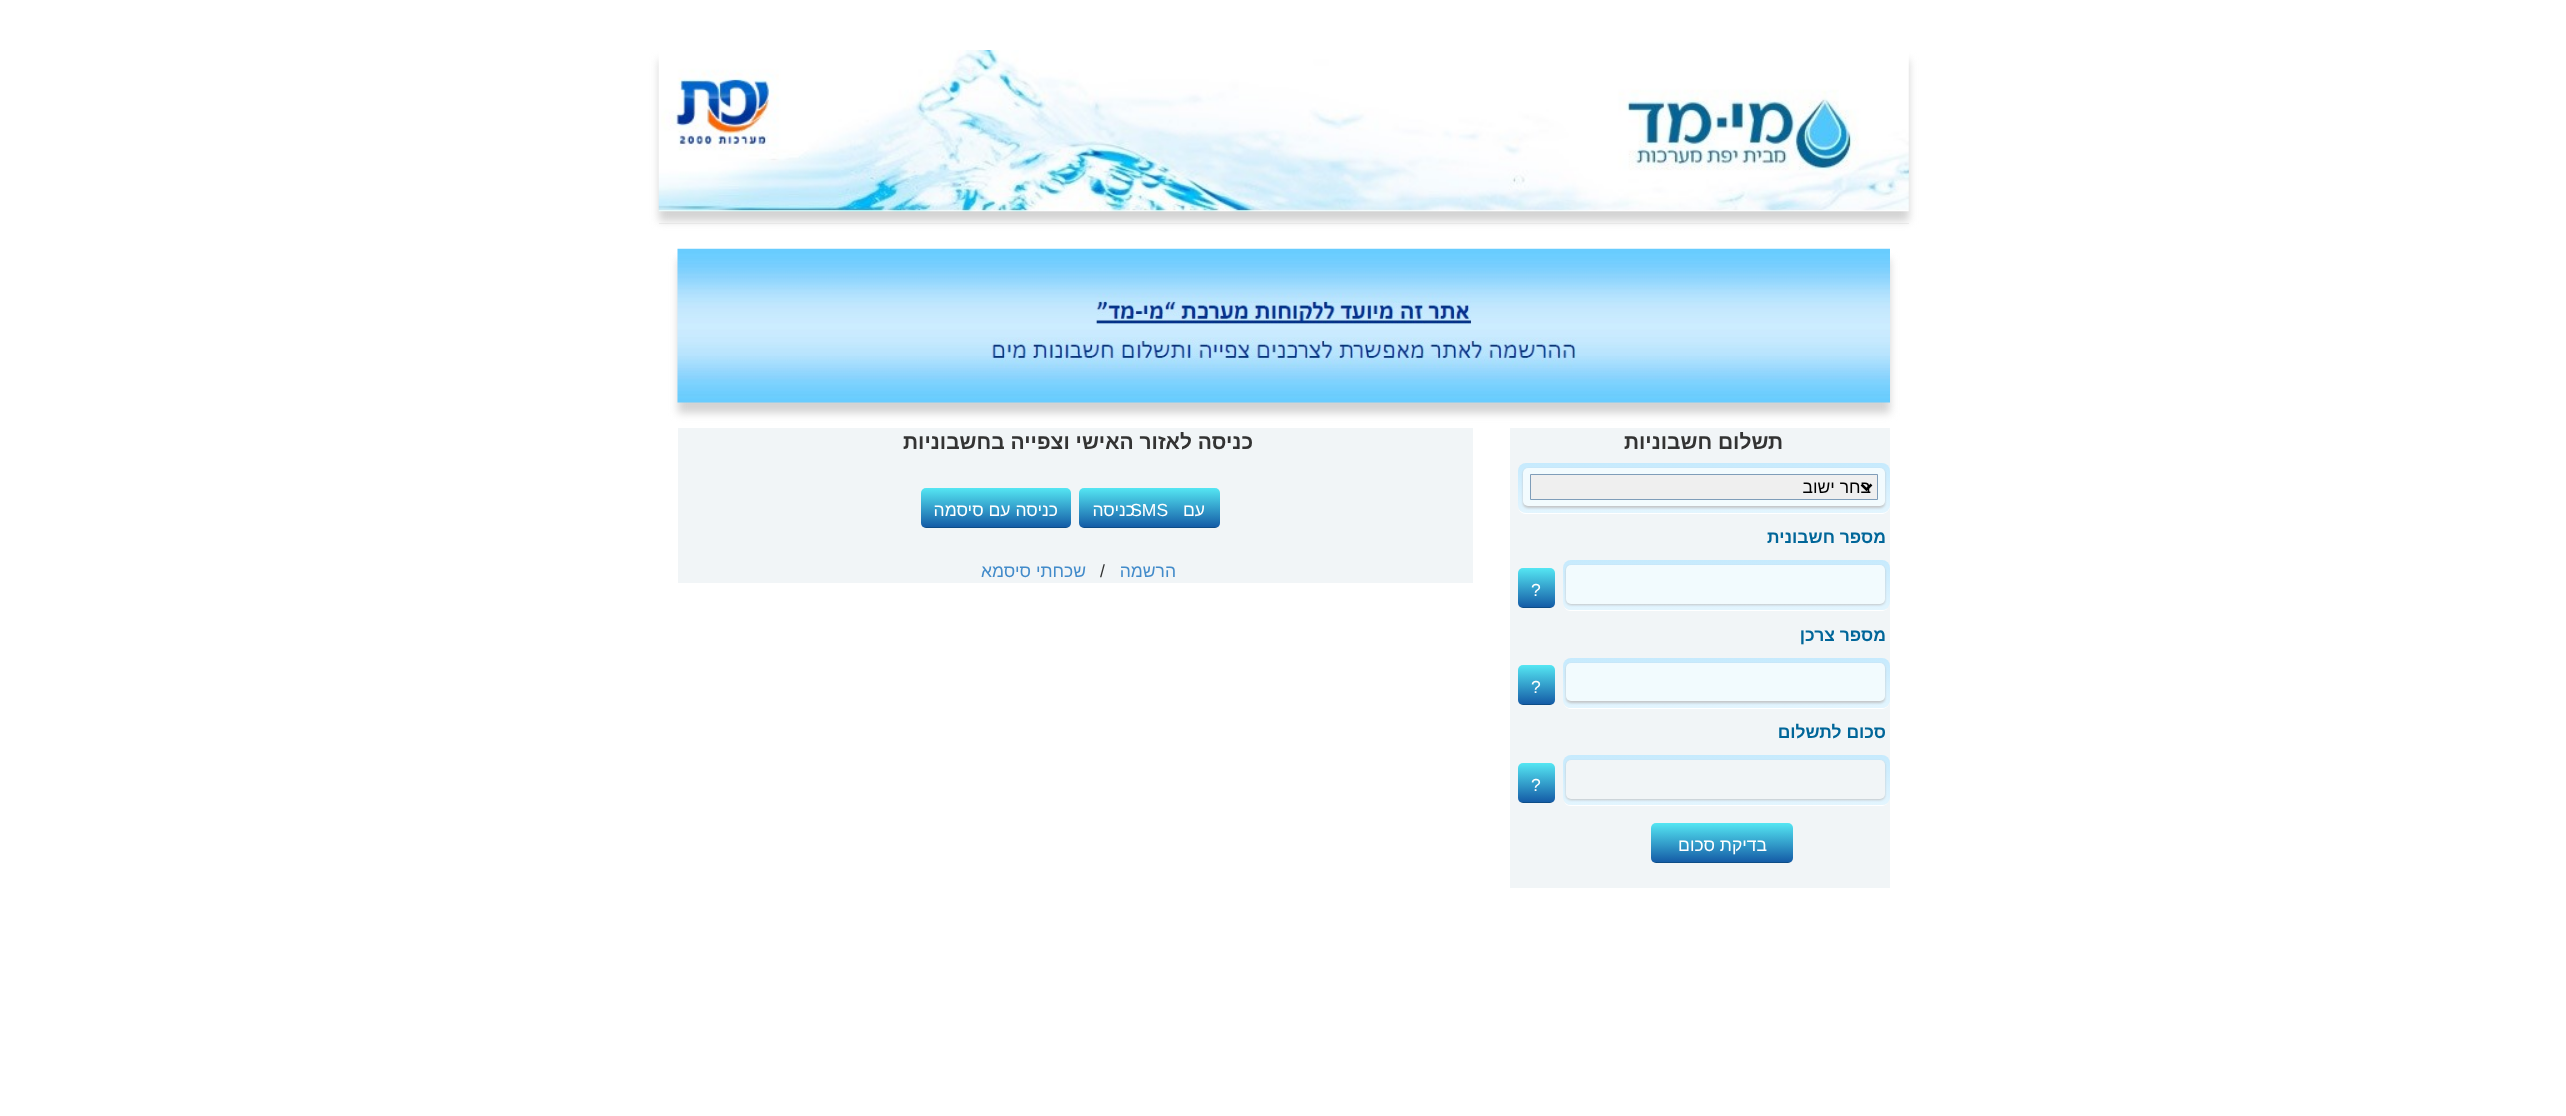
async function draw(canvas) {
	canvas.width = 2566;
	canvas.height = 1116;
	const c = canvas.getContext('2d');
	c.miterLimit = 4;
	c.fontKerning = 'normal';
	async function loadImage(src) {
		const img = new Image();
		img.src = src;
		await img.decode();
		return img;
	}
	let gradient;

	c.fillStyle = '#fff';
	c.fillRect(0, 0, 2566, 1116);
	c.fillStyle = '#eee';
	c.fillRect(659, 223, 1250, 1);
	c.fillStyle = '#d3d3d3';
	c.filter = 'blur(4.5px)';
	c.beginPath();
	c.rect(659, 60, 1250, 161);
	c.fill();
	c.filter = 'none';
	c.drawImage(await loadImage('img1.png'), 658, 50, 1251, 162);
	c.filter = 'blur(4.5px)';
	c.beginPath();
	c.rect(678, 259, 1212, 154);
	c.fill();
	c.filter = 'none';
	c.drawImage(await loadImage('img2.png'), 677, 248, 1213, 155);
	c.fillStyle = '#f1f5f7';
	c.fillRect(1510, 428, 380, 460);
	c.direction = 'rtl';
	c.font = 'bold 21px Liberation Sans';
	c.fillStyle = '#333';
	c.fillText('תשלום חשבוניות', 1783, 449);
	c.fillStyle = '#fff';
	c.beginPath();
	c.moveTo(1518, 509);
	c.bezierCurveTo(1520, 512, 1523, 514, 1526, 514);
	c.lineTo(1882, 514);
	c.bezierCurveTo(1886, 514, 1890, 510, 1890, 506);
	c.lineTo(1890, 505);
	c.bezierCurveTo(1890, 509, 1887, 512, 1882, 512);
	c.lineTo(1525, 512);
	c.bezierCurveTo(1522, 512, 1520, 511, 1518, 509);
	c.closePath();
	c.fill();
	gradient = c.createLinearGradient(1704, 463, 1704, 513);
	gradient.addColorStop(0, '#c6eafd');
	gradient.addColorStop(1, '#e3f5fe');
	c.fillStyle = gradient;
	c.beginPath();
	c.roundRect(1518, 463, 372, 50, 8);
	c.fill();
	c.fillStyle = '#c3c6c8';
	c.filter = 'blur(1px)';
	c.beginPath();
	c.roundRect(1523, 469, 362, 39, 5);
	c.fill();
	c.filter = 'none';
	c.fillStyle = '#f2fbfe';
	c.beginPath();
	c.roundRect(1523, 468, 362, 38, 5);
	c.fill();
	c.fillStyle = '#efefef';
	c.beginPath();
	c.rect(1530.5, 474.5, 347, 25);
	c.fill();
	c.strokeStyle = '#7f9db9';
	c.stroke();
	c.beginPath();
	c.moveTo(1861.5, 484.5);
	c.lineTo(1866.5, 489.5);
	c.lineTo(1871.5, 484.5);
	c.strokeStyle = '#000';
	c.lineWidth = 2.5;
	c.stroke();
	c.font = '17.5px Liberation Sans';
	c.fillStyle = '#000';
	c.fillText('בחר ישוב', 1871, 493);
	c.font = 'bold 17.5px Liberation Sans';
	c.fillStyle = '#069';
	c.fillText('מספר חשבונית', 1886, 543);
	c.fillStyle = '#fff';
	c.beginPath();
	c.moveTo(1564, 607);
	c.bezierCurveTo(1566, 610, 1568, 611, 1571, 611);
	c.lineTo(1882, 611);
	c.bezierCurveTo(1886, 611, 1890, 607, 1890, 603);
	c.lineTo(1890, 602);
	c.bezierCurveTo(1890, 607, 1887, 610, 1882, 610);
	c.lineTo(1570, 610);
	c.bezierCurveTo(1568, 610, 1566, 609, 1564, 607);
	c.closePath();
	c.fill();
	gradient = c.createLinearGradient(1726, 560, 1726, 610);
	gradient.addColorStop(0, '#c6eafd');
	gradient.addColorStop(1, '#e3f5fe');
	c.fillStyle = gradient;
	c.beginPath();
	c.roundRect(1563, 560, 327, 50, 8);
	c.fill();
	c.fillStyle = '#c3c6c8';
	c.filter = 'blur(1px)';
	c.beginPath();
	c.roundRect(1566, 566, 319, 39, 5);
	c.fill();
	c.filter = 'none';
	c.fillStyle = '#f2fbfe';
	c.beginPath();
	c.roundRect(1566, 565, 319, 39, 5);
	c.fill();
	gradient = c.createLinearGradient(1536, 568, 1536, 608);
	gradient.addColorStop(0, '#1ee1ef');
	gradient.addColorStop(0.01, '#54e5f2');
	gradient.addColorStop(0.97, '#155da7');
	gradient.addColorStop(1, '#084270');
	c.fillStyle = gradient;
	c.beginPath();
	c.roundRect(1518, 568, 37, 40, 5);
	c.fill();
	c.direction = 'ltr';
	c.font = '17.5px Liberation Sans';
	c.fillStyle = '#fff';
	c.fillText('?', 1531, 596);
	c.direction = 'rtl';
	c.font = 'bold 17.5px Liberation Sans';
	c.fillStyle = '#069';
	c.fillText('מספר צרכן', 1886, 641);
	c.fillStyle = '#fff';
	c.beginPath();
	c.moveTo(1563, 704);
	c.bezierCurveTo(1565, 707, 1568, 709, 1571, 709);
	c.lineTo(1882, 709);
	c.bezierCurveTo(1886, 709, 1890, 705, 1890, 701);
	c.lineTo(1890, 700);
	c.bezierCurveTo(1890, 704, 1887, 708, 1882, 708);
	c.lineTo(1570, 708);
	c.bezierCurveTo(1567, 708, 1565, 706, 1563, 704);
	c.closePath();
	c.fill();
	gradient = c.createLinearGradient(1726, 658, 1726, 708);
	gradient.addColorStop(0, '#c6eafd');
	gradient.addColorStop(1, '#e3f5fe');
	c.fillStyle = gradient;
	c.beginPath();
	c.roundRect(1563, 658, 327, 50, 8);
	c.fill();
	c.fillStyle = '#c3c6c8';
	c.filter = 'blur(1px)';
	c.beginPath();
	c.roundRect(1566, 664, 319, 39, 5);
	c.fill();
	c.filter = 'none';
	c.fillStyle = '#f2fbfe';
	c.beginPath();
	c.roundRect(1566, 663, 319, 38, 5);
	c.fill();
	gradient = c.createLinearGradient(1536, 665, 1536, 705);
	gradient.addColorStop(0, '#1ee1ef');
	gradient.addColorStop(0.01, '#54e5f2');
	gradient.addColorStop(0.97, '#155da7');
	gradient.addColorStop(1, '#084270');
	c.fillStyle = gradient;
	c.beginPath();
	c.roundRect(1518, 665, 37, 40, 5);
	c.fill();
	c.direction = 'ltr';
	c.font = '17.5px Liberation Sans';
	c.fillStyle = '#fff';
	c.fillText('?', 1531, 693);
	c.direction = 'rtl';
	c.font = 'bold 17.5px Liberation Sans';
	c.fillStyle = '#069';
	c.fillText('סכום לתשלום', 1886, 738);
	c.fillStyle = '#fff';
	c.beginPath();
	c.moveTo(1564, 802);
	c.bezierCurveTo(1566, 805, 1568, 806, 1571, 806);
	c.lineTo(1882, 806);
	c.bezierCurveTo(1886, 806, 1890, 802, 1890, 798);
	c.bezierCurveTo(1890, 802, 1887, 805, 1882, 805);
	c.lineTo(1570, 805);
	c.bezierCurveTo(1568, 805, 1566, 804, 1564, 802);
	c.closePath();
	c.fill();
	gradient = c.createLinearGradient(1726, 755, 1726, 805);
	gradient.addColorStop(0, '#c6eafd');
	gradient.addColorStop(1, '#e3f5fe');
	c.fillStyle = gradient;
	c.beginPath();
	c.roundRect(1563, 755, 327, 50, 8);
	c.fill();
	c.fillStyle = '#c3c6c8';
	c.filter = 'blur(1px)';
	c.beginPath();
	c.roundRect(1566, 761, 319, 39, 5);
	c.fill();
	c.filter = 'none';
	c.fillStyle = '#f1f5f7';
	c.beginPath();
	c.roundRect(1566, 760, 319, 39, 5);
	c.fill();
	gradient = c.createLinearGradient(1536, 763, 1536, 803);
	gradient.addColorStop(0, '#1ee1ef');
	gradient.addColorStop(0.01, '#54e5f2');
	gradient.addColorStop(0.97, '#155da7');
	gradient.addColorStop(1, '#084270');
	c.fillStyle = gradient;
	c.beginPath();
	c.roundRect(1518, 763, 37, 40, 5);
	c.fill();
	c.direction = 'ltr';
	c.font = '17.5px Liberation Sans';
	c.fillStyle = '#fff';
	c.fillText('?', 1531, 791);
	gradient = c.createLinearGradient(1722, 823, 1722, 863);
	gradient.addColorStop(0, '#1ee1ef');
	gradient.addColorStop(0.01, '#54e5f2');
	gradient.addColorStop(0.97, '#155da7');
	gradient.addColorStop(1, '#084270');
	c.fillStyle = gradient;
	c.beginPath();
	c.roundRect(1651, 823, 142, 40, 5);
	c.fill();
	c.direction = 'rtl';
	c.fillStyle = '#fff';
	c.fillText('בדיקת סכום', 1767, 851);
	c.fillStyle = '#f1f5f7';
	c.fillRect(678, 428, 795, 155);
	c.font = 'bold 21px Liberation Sans';
	c.fillStyle = '#333';
	c.fillText('כניסה לאזור האישי וצפייה בחשבוניות', 1253, 449);
	gradient = c.createLinearGradient(1149, 488, 1149, 528);
	gradient.addColorStop(0, '#1ee1ef');
	gradient.addColorStop(0.01, '#54e5f2');
	gradient.addColorStop(0.97, '#155da7');
	gradient.addColorStop(1, '#084270');
	c.fillStyle = gradient;
	c.beginPath();
	c.roundRect(1079, 488, 141, 40, 5);
	c.fill();
	c.font = '17.5px Liberation Sans';
	c.fillStyle = '#fff';
	c.fillText('כניסה', 1135, 516);
	c.wordSpacing = '10px';
	c.fillText('עם SMS', 1205, 516);
	gradient = c.createLinearGradient(996, 488, 996, 528);
	gradient.addColorStop(0, '#1ee1ef');
	gradient.addColorStop(0.01, '#54e5f2');
	gradient.addColorStop(0.97, '#155da7');
	gradient.addColorStop(1, '#084270');
	c.fillStyle = gradient;
	c.beginPath();
	c.roundRect(921, 488, 150, 40, 5);
	c.fill();
	c.wordSpacing = '0px';
	c.fillStyle = '#fff';
	c.fillText('כניסה עם סיסמה', 1058, 516);
	c.fillStyle = '#428bca';
	c.fillText('הרשמה', 1176, 577);
	c.direction = 'ltr';
	c.fillStyle = '#333';
	c.fillText('/', 1100, 577);
	c.direction = 'rtl';
	c.fillStyle = '#428bca';
	c.fillText('שכחתי סיסמא', 1086, 577);
}

draw(document.querySelector('canvas'));
